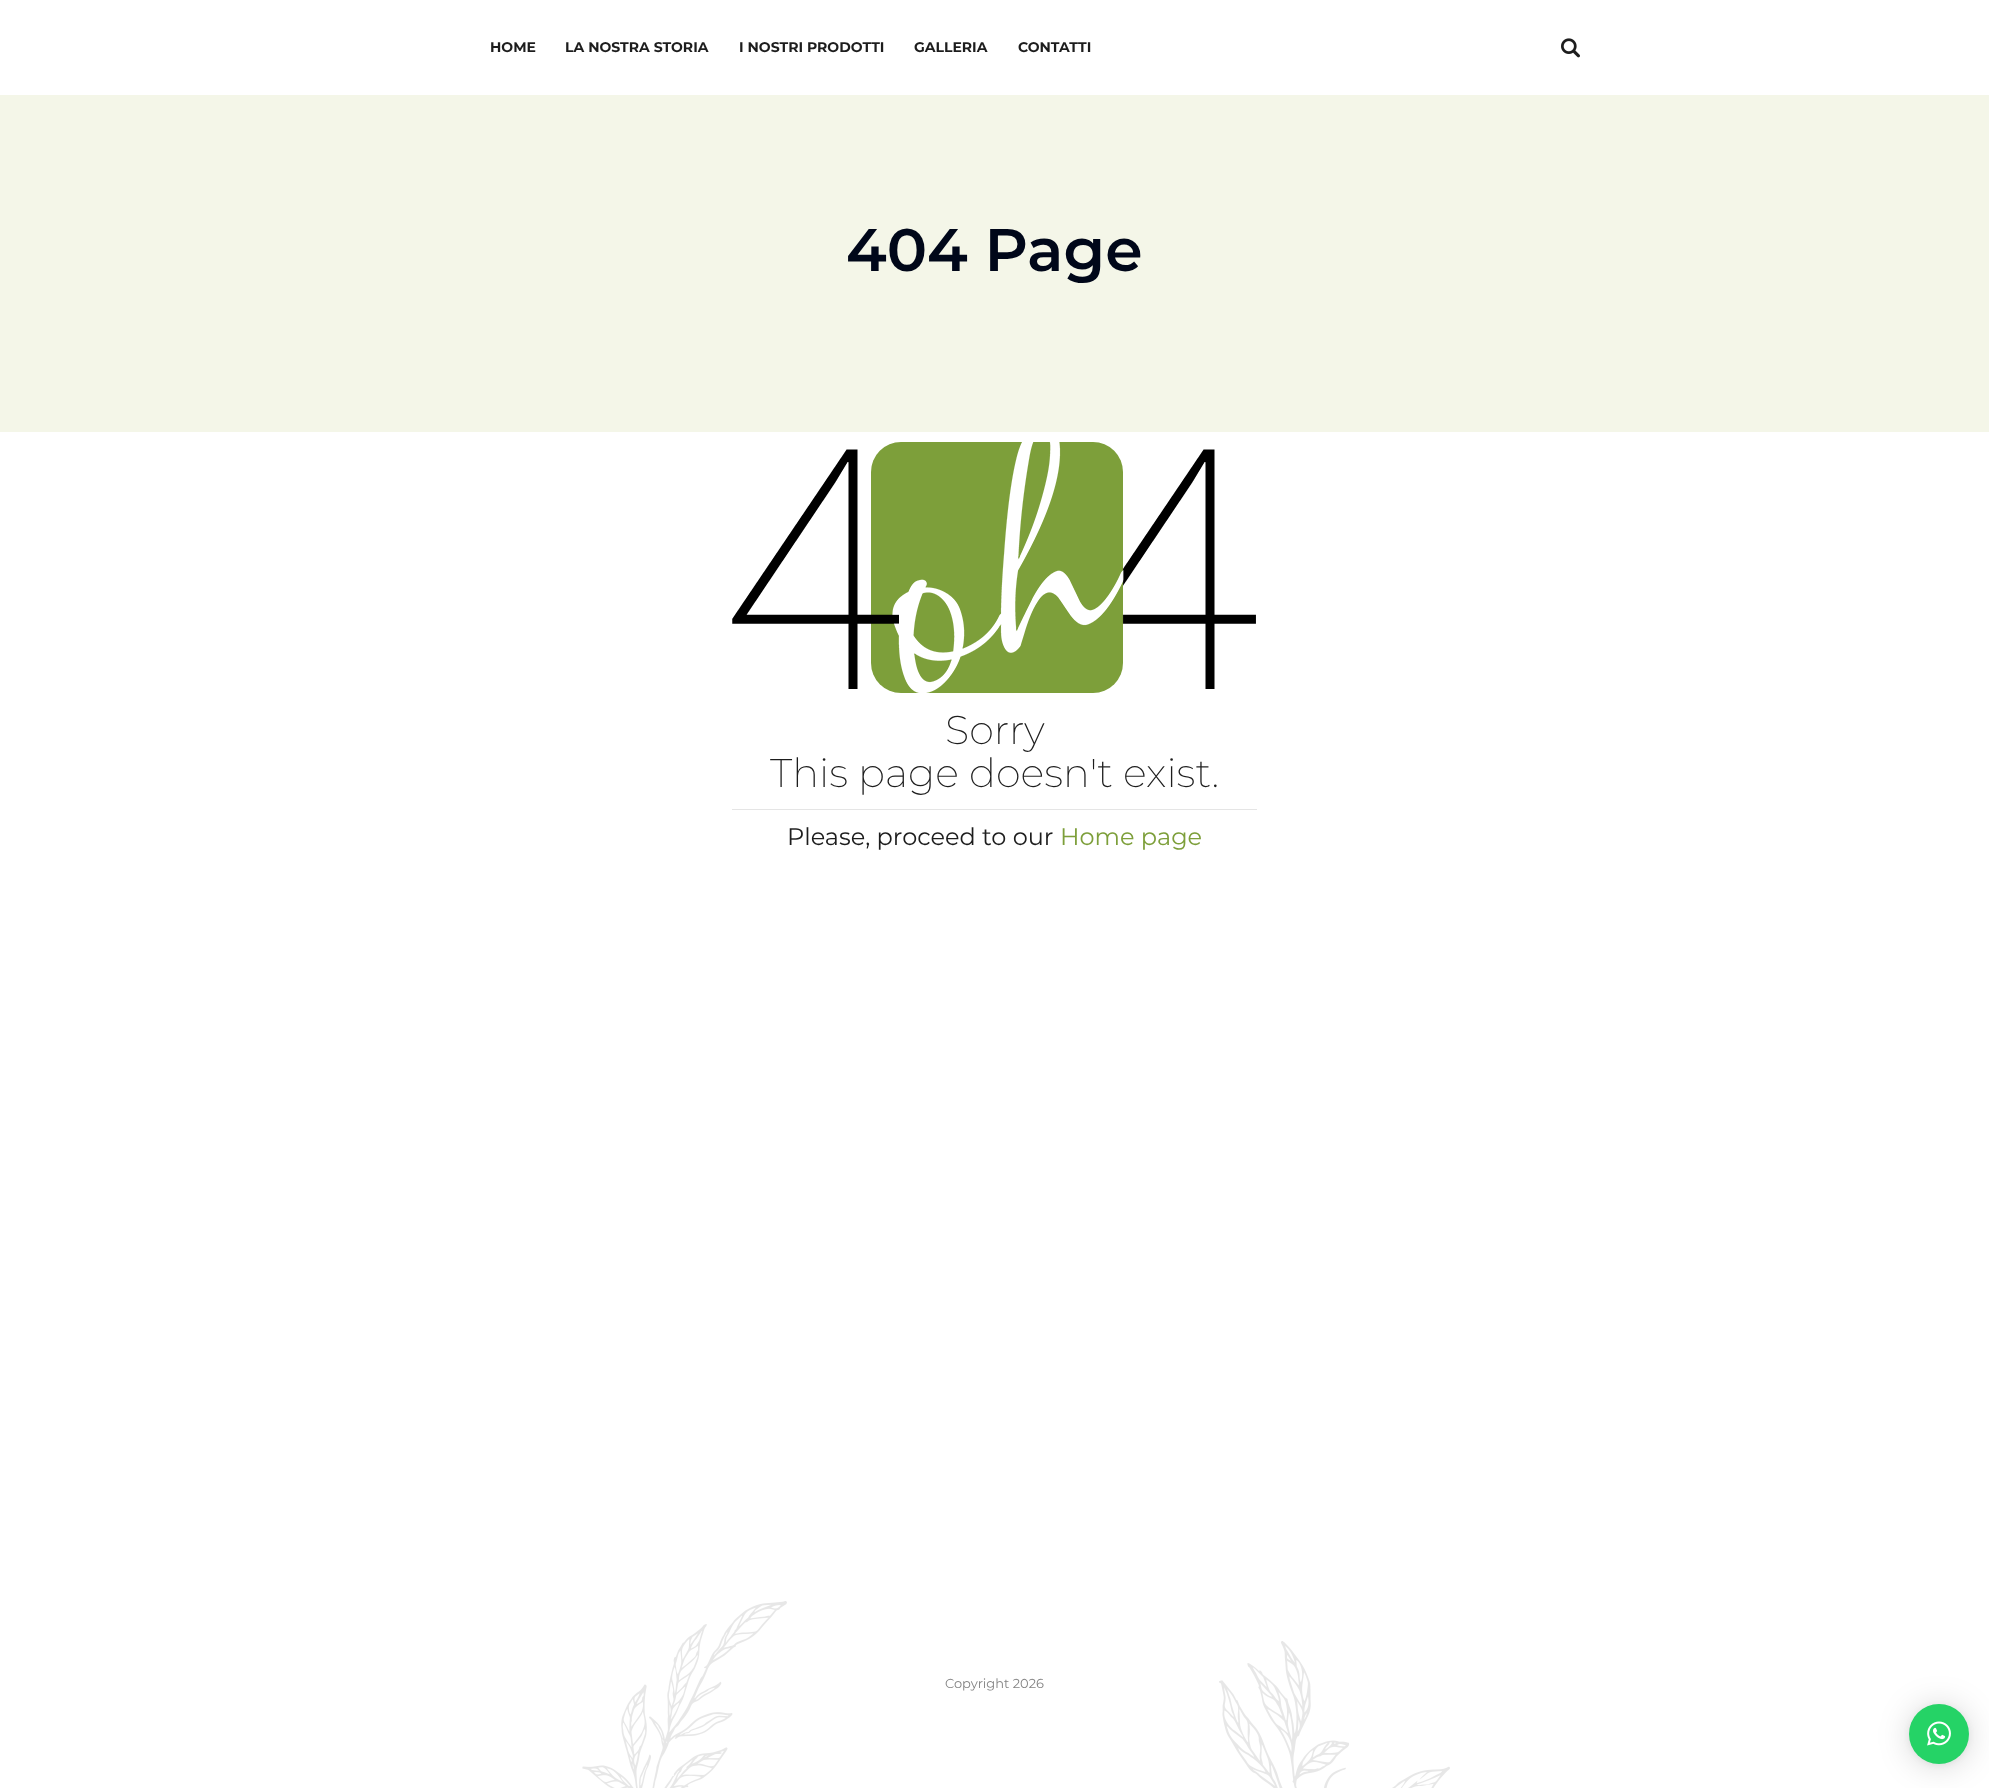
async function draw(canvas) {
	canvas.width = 1989;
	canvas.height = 1788;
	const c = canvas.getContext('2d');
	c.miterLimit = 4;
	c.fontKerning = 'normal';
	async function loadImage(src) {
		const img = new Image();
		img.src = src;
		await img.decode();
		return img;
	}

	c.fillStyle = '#fff';
	c.fillRect(0, 0, 1989, 1788);
	c.font = 'bold 14px Montserrat';
	c.fillStyle = '#1d1d1d';
	for (const [text, x, y] of [
		['HOME', 490, 52],
		['LA NOSTRA STORIA', 565, 52],
		['I NOSTRI PRODOTTI', 739, 52],
		['GALLERIA', 914, 52],
		['CONTATTI', 1018, 52],
	]) {
		c.fillText(text, x, y);
	}
	c.drawImage(await loadImage('img1.png'), 1561, 38, 19, 20);
	c.fillStyle = '#f4f6e8';
	c.fillRect(0, 95, 1989, 337);
	c.font = '600 60px Montserrat';
	c.fillStyle = '#000719';
	c.fillText('404 Page', 846, 271);
	c.fillStyle = '#7d9f3a';
	c.beginPath();
	c.roundRect(871, 442, 252, 251, 30);
	c.fill();
	c.drawImage(await loadImage('img2.png'), 732, 442, 524, 251);
	c.font = '200 40px Montserrat';
	c.fillStyle = '#1d1d1d';
	c.fillText('Sorry', 945, 744);
	c.fillText('This page doesn\'t exist.', 770, 787);
	c.fillStyle = '#e5e5e5';
	c.fillRect(732, 809, 525, 1);
	c.font = '24px Montserrat';
	c.fillStyle = '#1d1d1d';
	c.fillText('Please, proceed to our', 787, 845);
	c.fillStyle = '#7d9f3a';
	c.fillText('Home page', 1060, 845);
	c.drawImage(await loadImage('img3.png'), 582, 1601, 868, 187);
	c.font = '13px Montserrat';
	c.fillStyle = '#848484';
	c.fillText('Copyright 2026', 945, 1688);
	c.fillStyle = '#00000029';
	c.filter = 'blur(16px)';
	c.beginPath();
	c.roundRect(1909, 1706, 60, 60, 30);
	c.fill();
	c.filter = 'none';
	c.fillStyle = '#0000000f';
	c.filter = 'blur(3px)';
	c.beginPath();
	c.roundRect(1909, 1705, 60, 60, 30);
	c.fill();
	c.filter = 'none';
	c.fillStyle = '#25d366';
	c.beginPath();
	c.arc(1939, 1734, 30, 0, 2 * Math.PI);
	c.fill();
	c.drawImage(await loadImage('img4.png'), 1927, 1721, 24, 25);
}

draw(document.querySelector('canvas'));
